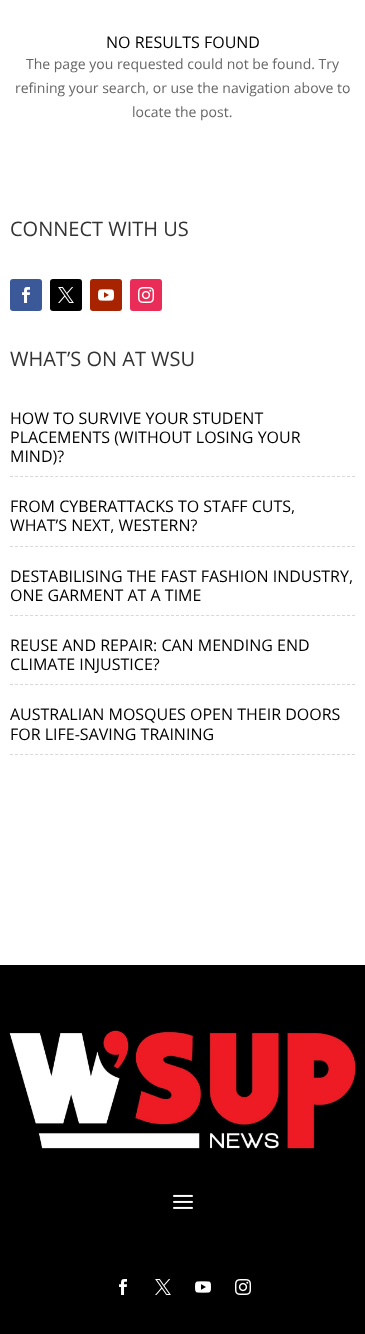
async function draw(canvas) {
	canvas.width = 365;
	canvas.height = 1334;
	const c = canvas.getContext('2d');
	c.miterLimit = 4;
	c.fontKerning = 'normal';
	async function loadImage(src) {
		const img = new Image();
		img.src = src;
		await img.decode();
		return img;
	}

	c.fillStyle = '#fff';
	c.fillRect(0, 0, 365, 1334);
	c.font = '16px Open Sans';
	c.fillStyle = '#000';
	c.fillText('NO RESULTS FOUND', 106, 48);
	c.font = '14px Open Sans';
	c.fillStyle = '#666';
	for (const [text, x, y] of [
		['The page you requested could not be found. Try', 26, 69],
		['refining your search, or use the navigation above to', 15, 93],
		['locate the post.', 132, 117],
	]) {
		c.fillText(text, x, y);
	}
	c.font = '20px Open Sans';
	c.fillStyle = '#333';
	c.fillText('CONNECT WITH US', 10, 236);
	c.fillStyle = '#3b5998';
	c.beginPath();
	c.roundRect(10, 279, 32, 32, 3);
	c.fill();
	c.drawImage(await loadImage('img1.png'), 22, 287, 8, 16);
	c.fillStyle = '#000';
	c.beginPath();
	c.roundRect(50, 279, 32, 32, 3);
	c.fill();
	c.drawImage(await loadImage('img2.png'), 58, 287, 16, 16);
	c.fillStyle = '#a82400';
	c.beginPath();
	c.roundRect(90, 279, 32, 32, 3);
	c.fill();
	c.drawImage(await loadImage('img3.png'), 98, 289, 16, 12);
	c.fillStyle = '#ea2c59';
	c.beginPath();
	c.roundRect(130, 279, 32, 32, 3);
	c.fill();
	c.drawImage(await loadImage('img4.png'), 138, 287, 16, 16);
	c.fillStyle = '#333';
	c.fillText('WHAT’S ON AT WSU', 10, 366);
	c.beginPath();
	c.moveTo(10, 476.5);
	c.lineTo(355, 476.5);
	c.strokeStyle = '#d8d8d8';
	c.setLineDash([3, 2.03]);
	c.stroke();
	c.font = '16px Open Sans';
	c.fillStyle = '#000';
	for (const [text, x, y] of [
		['HOW TO SURVIVE YOUR STUDENT', 10, 424],
		['PLACEMENTS (WITHOUT LOSING YOUR', 10, 443],
		['MIND)?', 10, 462],
	]) {
		c.fillText(text, x, y);
	}
	c.beginPath();
	c.moveTo(10, 546.5);
	c.lineTo(355, 546.5);
	c.stroke();
	c.fillText('FROM CYBERATTACKS TO STAFF CUTS,', 10, 512);
	c.fillText('WHAT’S NEXT, WESTERN?', 10, 531);
	c.beginPath();
	c.moveTo(10, 615.5);
	c.lineTo(355, 615.5);
	c.stroke();
	c.fillText('DESTABILISING THE FAST FASHION INDUSTRY,', 10, 582);
	c.fillText('ONE GARMENT AT A TIME', 10, 601);
	c.beginPath();
	c.moveTo(10, 684.5);
	c.lineTo(355, 684.5);
	c.stroke();
	c.fillText('REUSE AND REPAIR: CAN MENDING END', 10, 651);
	c.fillText('CLIMATE INJUSTICE?', 10, 670);
	c.beginPath();
	c.moveTo(10, 754.5);
	c.lineTo(355, 754.5);
	c.stroke();
	c.fillText('AUSTRALIAN MOSQUES OPEN THEIR DOORS', 10, 720);
	c.fillText('FOR LIFE-SAVING TRAINING', 10, 740);
	c.fillRect(0, 965, 365, 369);
	c.drawImage(await loadImage('img5.png'), 9, 1029, 348, 121);
	c.drawImage(await loadImage('img6.png'), 173, 1194, 20, 15);
	c.drawImage(await loadImage('img7.png'), 119, 1279, 8, 16);
	c.drawImage(await loadImage('img2.png'), 155, 1279, 16, 16);
	c.drawImage(await loadImage('img8.png'), 195, 1281, 16, 12);
	c.drawImage(await loadImage('img9.png'), 235, 1279, 16, 16);
}

draw(document.querySelector('canvas'));
